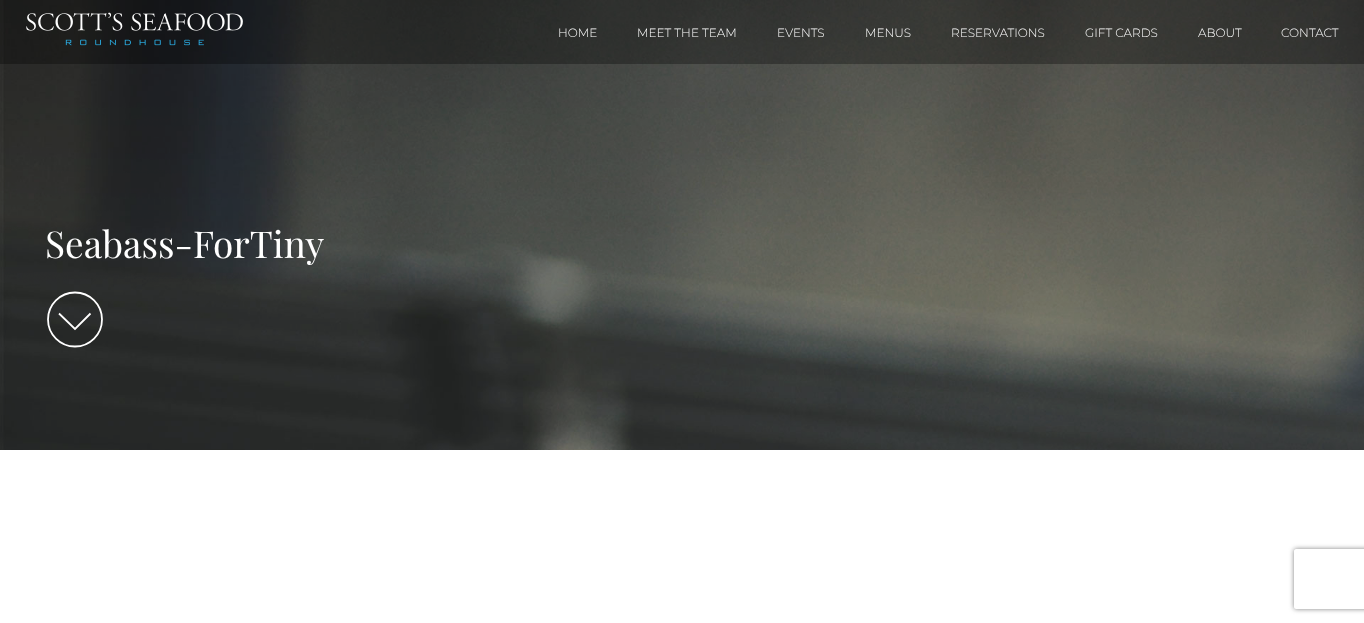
async function draw(canvas) {
	canvas.width = 1364;
	canvas.height = 623;
	const c = canvas.getContext('2d');
	c.miterLimit = 4;
	c.fontKerning = 'normal';
	async function loadImage(src) {
		const img = new Image();
		img.src = src;
		await img.decode();
		return img;
	}

	c.fillStyle = '#fff';
	c.fillRect(0, 0, 1364, 623);
	c.drawImage(await loadImage('img2.png'), 0, 0, 1364, 450);
	c.drawImage(await loadImage('img3.png'), 0, 0, 1364, 450);
	c.fillStyle = '#0000004d';
	c.fillRect(0, 0, 1364, 64);
	c.drawImage(await loadImage('img1.png'), 26, 12, 217, 34);
	c.font = '300 12px Montserrat';
	c.fillStyle = '#fff';
	for (const [text, x, y] of [
		['HOME', 558, 37],
		['MEET THE TEAM', 637, 37],
		['EVENTS', 777, 37],
		['MENUS', 865, 37],
		['RESERVATIONS', 951, 37],
		['GIFT CARDS', 1085, 37],
		['ABOUT', 1198, 37],
		['CONTACT', 1281, 37],
	]) {
		c.fillText(text, x, y);
	}
	c.font = '37px Playfair Display';
	c.fillText('Seabass-ForTiny', 45, 258);
	c.beginPath();
	c.arc(75, 319.5, 27, 0, 2 * Math.PI);
	c.strokeStyle = '#fff';
	c.lineWidth = 1.8;
	c.stroke();
	c.beginPath();
	c.moveTo(59, 313.5);
	c.lineTo(75, 329);
	c.lineTo(90.5, 313.5);
	c.stroke();
	c.save();
	c.beginPath();
	c.moveTo(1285, 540);
	c.lineTo(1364, 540);
	c.lineTo(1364, 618);
	c.lineTo(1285, 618);
	c.closePath();
	c.moveTo(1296, 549);
	c.lineTo(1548, 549);
	c.bezierCurveTo(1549, 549, 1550, 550, 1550, 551);
	c.lineTo(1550, 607);
	c.bezierCurveTo(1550, 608, 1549, 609, 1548, 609);
	c.lineTo(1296, 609);
	c.bezierCurveTo(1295, 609, 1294, 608, 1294, 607);
	c.lineTo(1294, 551);
	c.bezierCurveTo(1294, 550, 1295, 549, 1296, 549);
	c.closePath();
	c.clip('evenodd');
	c.fillStyle = '#808080';
	c.filter = 'blur(2.5px)';
	c.beginPath();
	c.roundRect(1294, 549, 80, 60, 2);
	c.fill();
	c.filter = 'none';
	c.restore();
}

draw(document.querySelector('canvas'));
